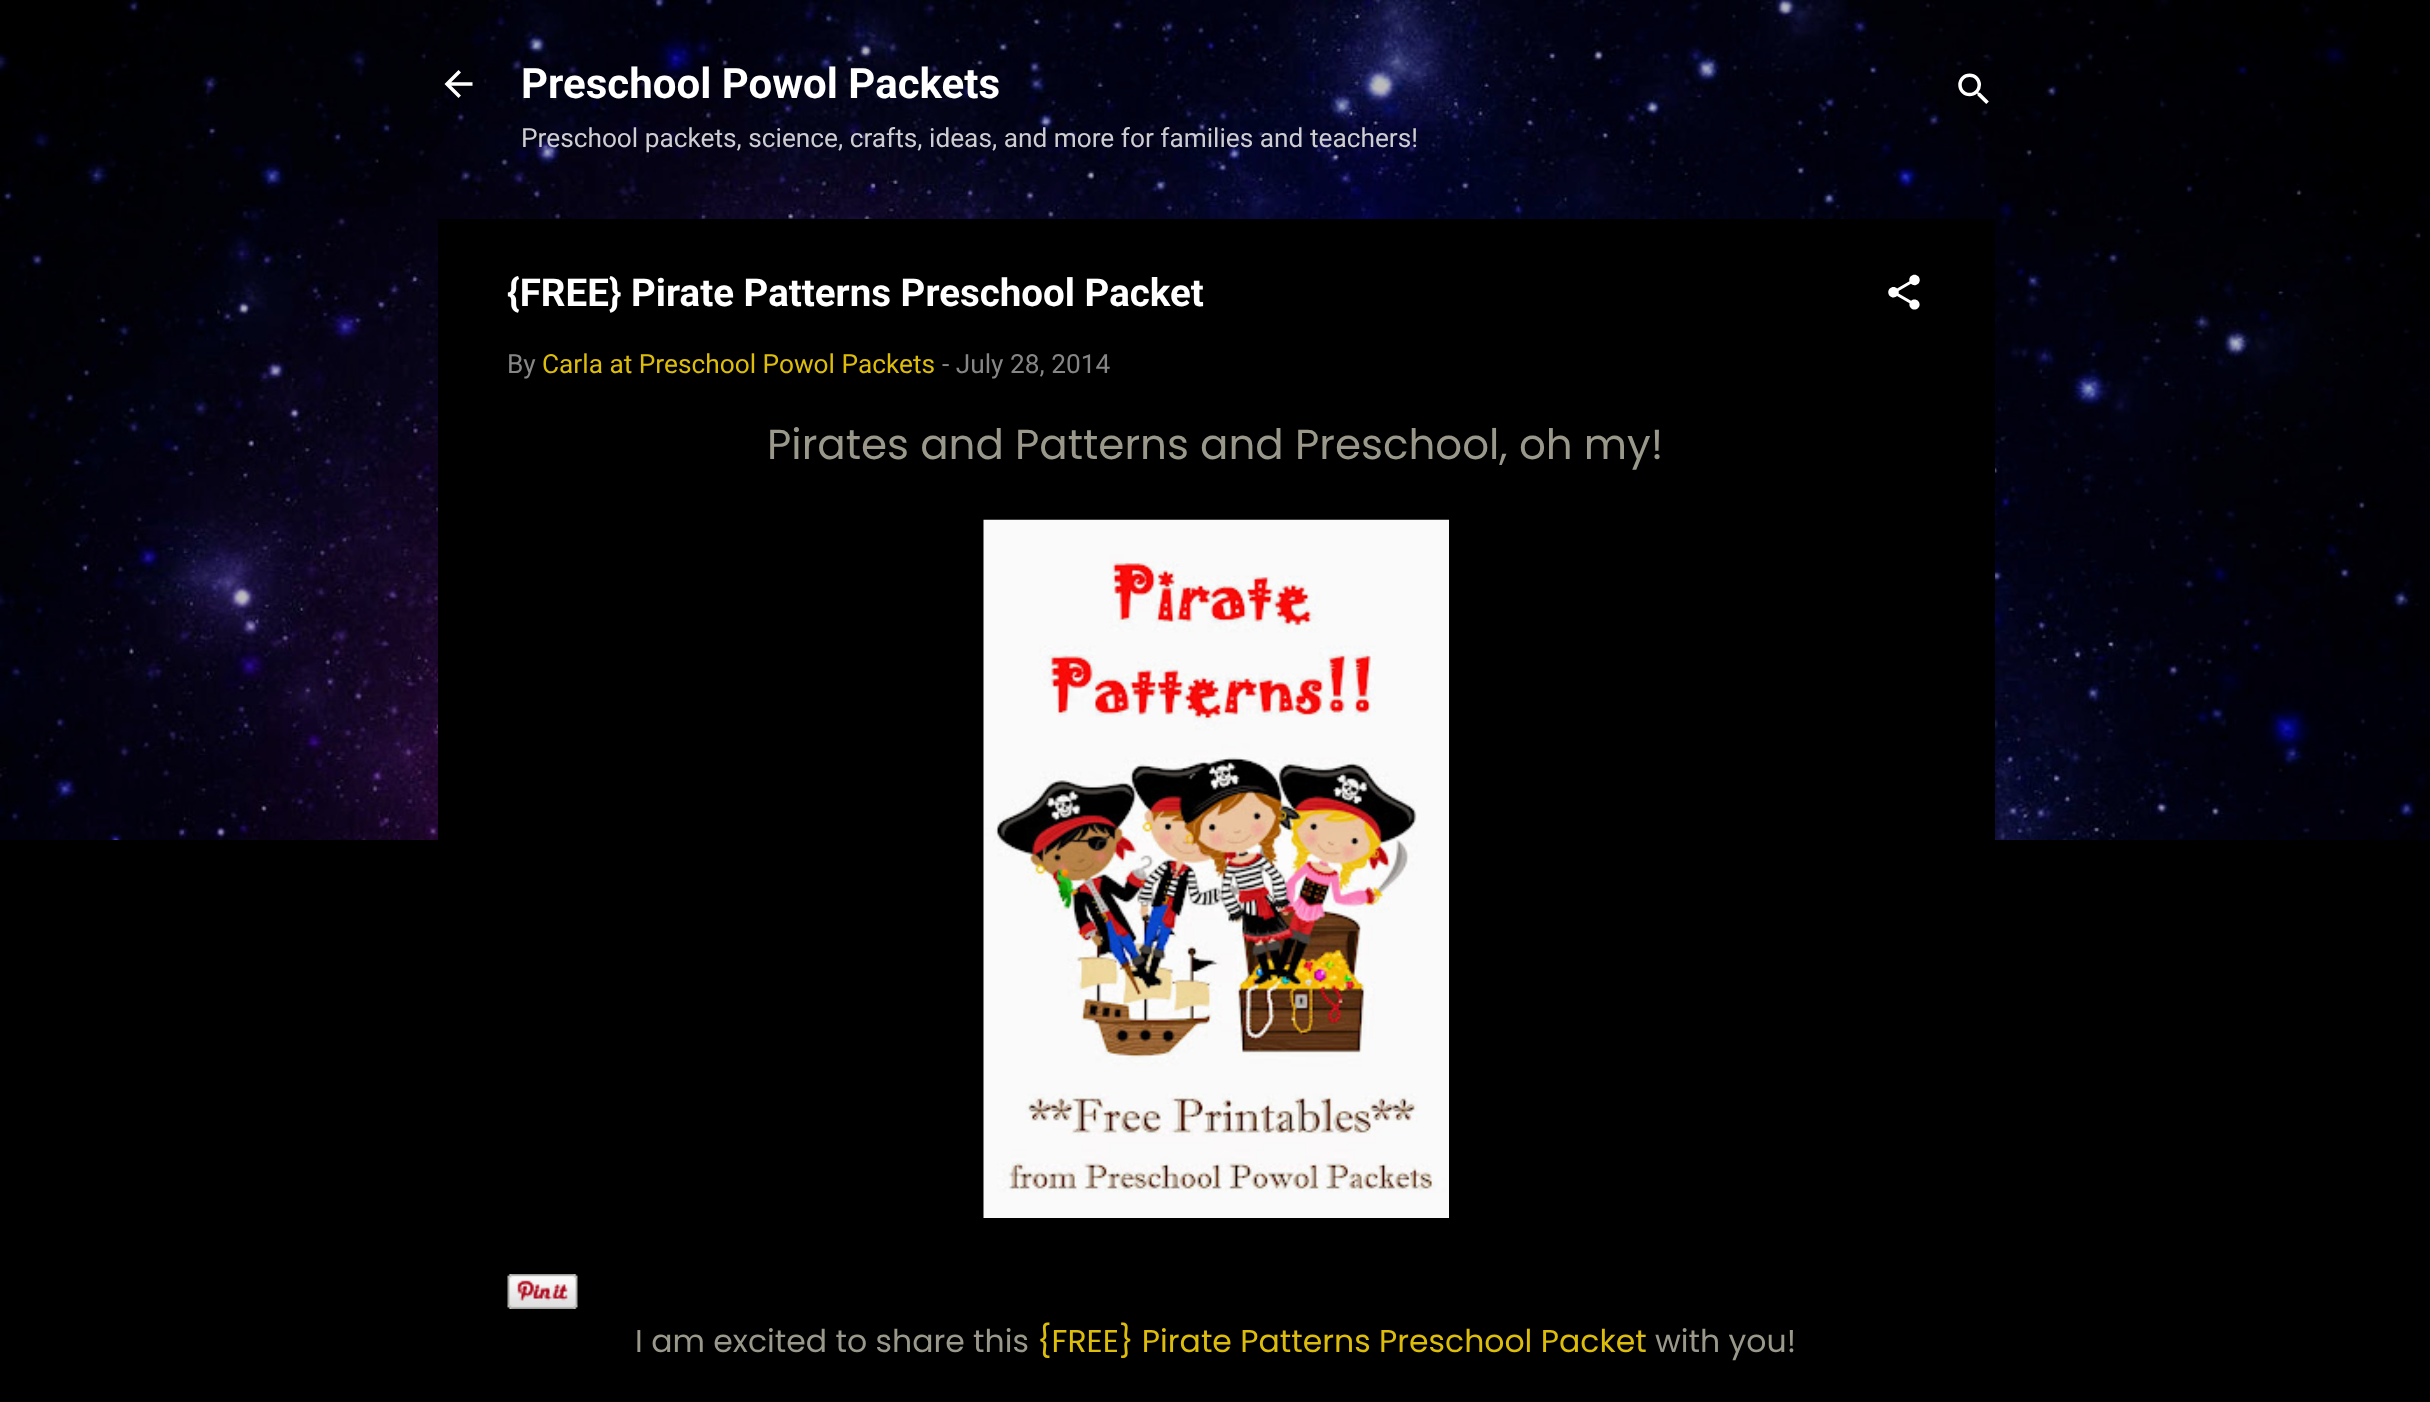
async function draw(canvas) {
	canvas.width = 2430;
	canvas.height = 1402;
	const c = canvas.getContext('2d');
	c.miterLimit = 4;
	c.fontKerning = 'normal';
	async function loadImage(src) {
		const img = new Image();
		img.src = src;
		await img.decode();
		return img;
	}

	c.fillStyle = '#000';
	c.fillRect(0, 0, 2430, 1402);
	c.drawImage(await loadImage('img1.png'), 0, 0, 2430, 840);
	c.drawImage(await loadImage('img2.png'), 444, 70, 29, 28);
	c.font = 'bold 42px Roboto';
	c.fillStyle = '#fff';
	c.fillText('Preschool Powol Packets', 521, 98);
	c.font = '26.25px Roboto';
	c.fillStyle = '#cdcdd2';
	c.fillText('Preschool packets, science, crafts, ideas, and more for families and teachers!', 521, 147);
	c.drawImage(await loadImage('img3.png'), 1958, 73, 31, 31);
	c.fillStyle = '#000';
	c.fillRect(438, 219, 1557, 621);
	c.font = 'bold 38.5px Roboto';
	c.fillStyle = '#fff';
	c.fillText('{FREE} Pirate Patterns Preschool Packet', 507, 306);
	c.drawImage(await loadImage('img4.png'), 1888, 274, 32, 36);
	c.font = '26.25px Roboto';
	c.fillStyle = '#868686';
	c.fillText('By', 507, 373);
	c.fillStyle = '#ddbd0c';
	c.fillText('Carla at Preschool Powol Packets', 542, 373);
	c.fillStyle = '#868686';
	c.fillText('- July 28, 2014', 942, 373);
	c.font = '42px Poppins';
	c.fillStyle = '#9a988b';
	c.fillText('Pirates and Patterns and Preschool, oh my!', 767, 459);
	c.drawImage(await loadImage('img5.png'), 983, 519, 466, 699);
	c.drawImage(await loadImage('img6.png'), 507, 1274, 71, 35);
	c.font = '31.5px Poppins';
	c.fillText('I am excited to share this', 635, 1352);
	c.fillStyle = '#ddbd0c';
	c.fillText('{FREE} Pirate Patterns Preschool Packet', 1037, 1352);
	c.fillStyle = '#9a988b';
	c.fillText('with you!', 1655, 1352);
}

draw(document.querySelector('canvas'));
